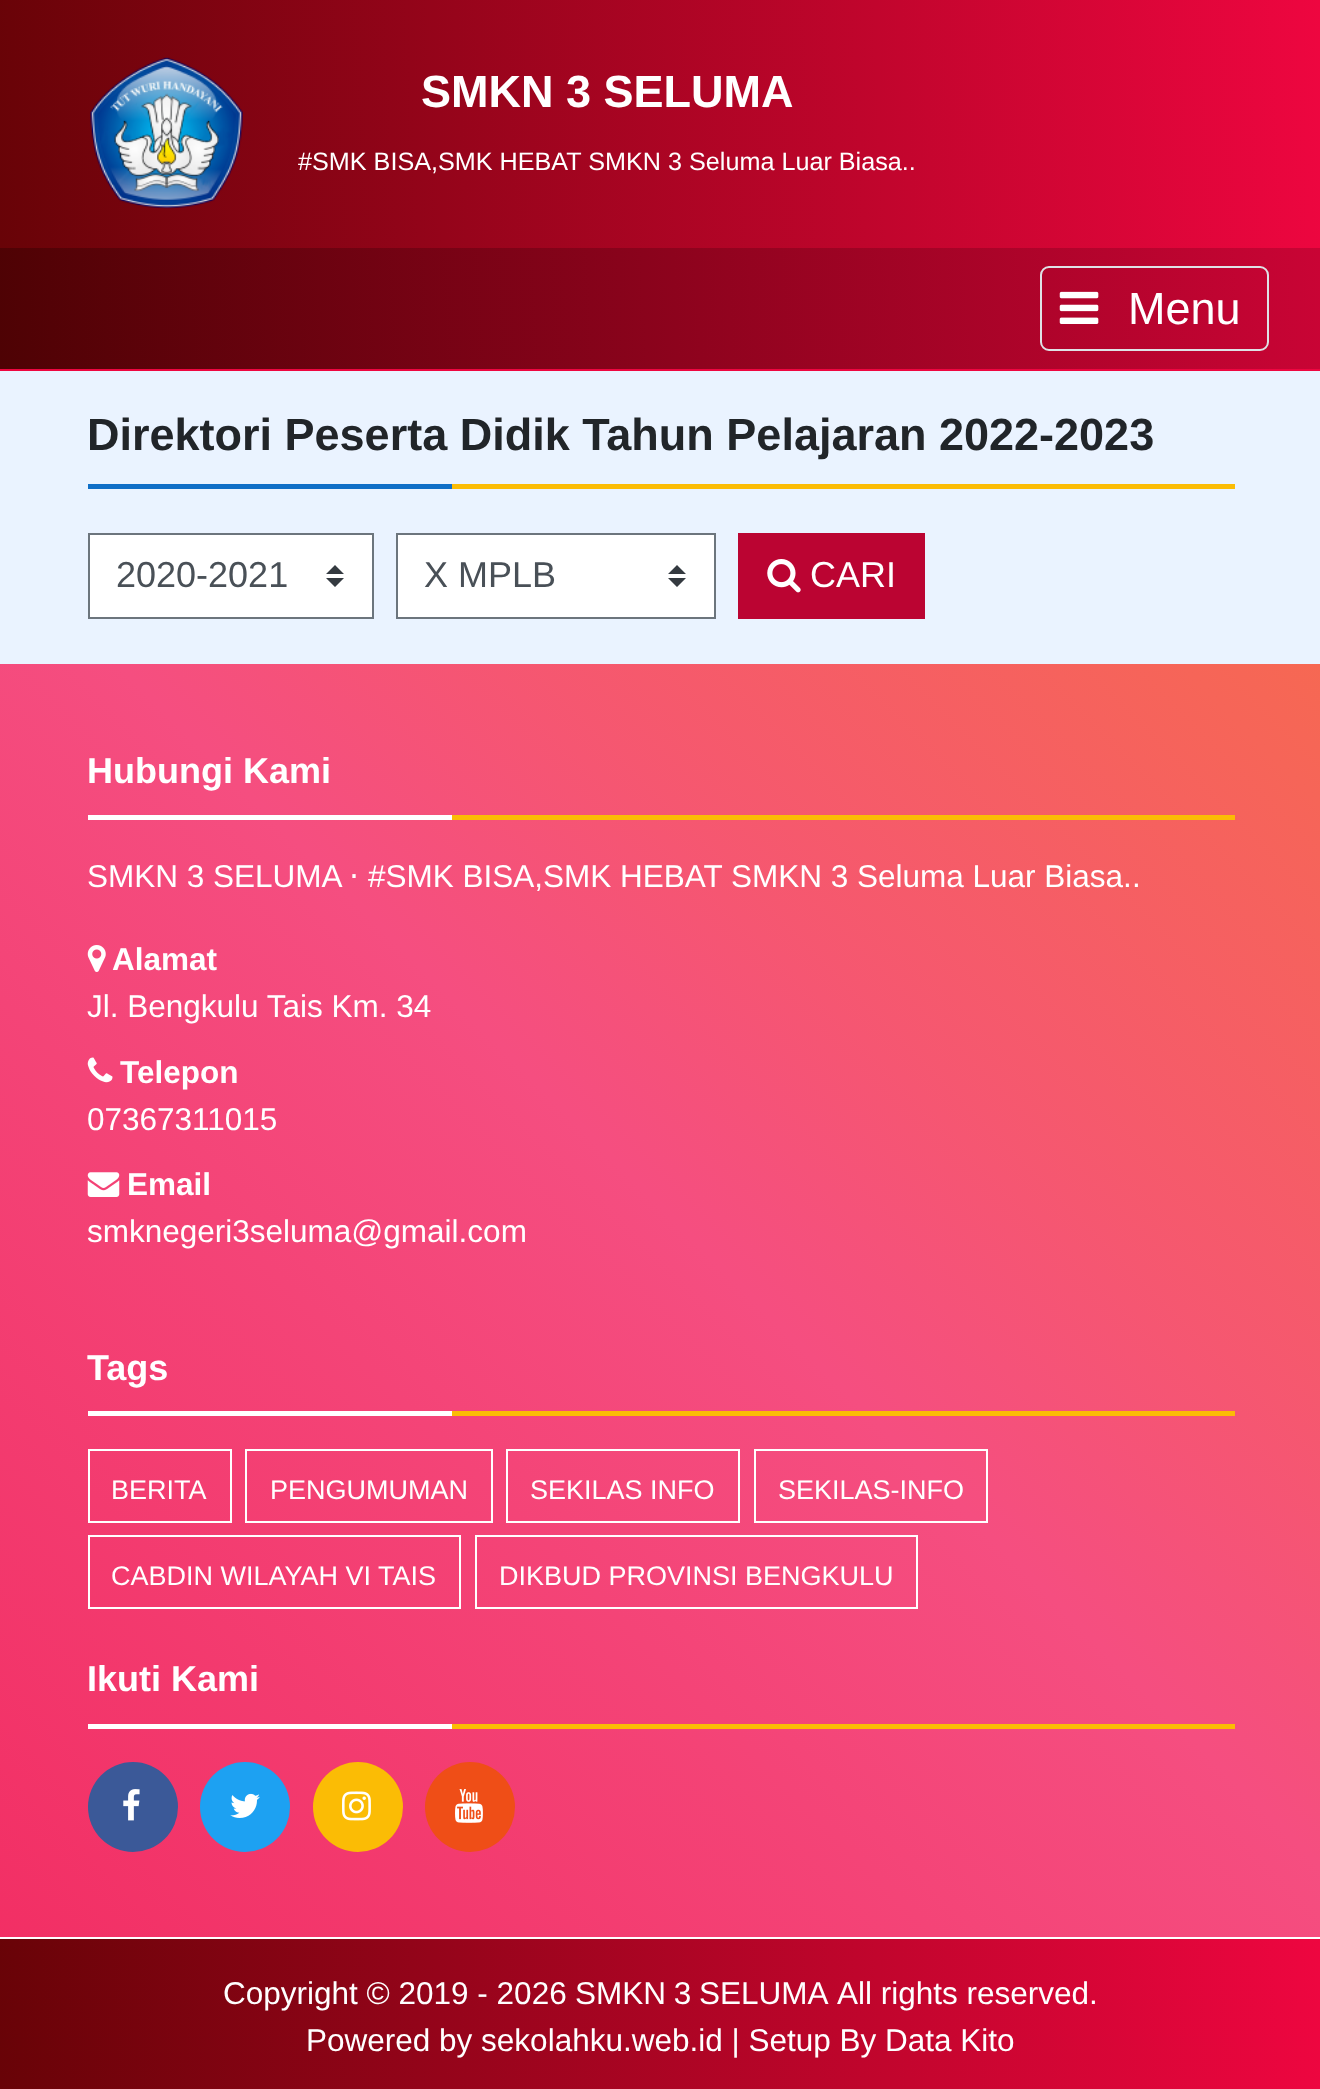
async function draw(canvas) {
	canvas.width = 1320;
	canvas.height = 2089;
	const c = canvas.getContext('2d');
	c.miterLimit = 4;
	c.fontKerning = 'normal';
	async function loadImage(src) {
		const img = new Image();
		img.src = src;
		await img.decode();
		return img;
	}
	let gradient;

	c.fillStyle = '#eaf3ff';
	c.fillRect(0, 0, 1320, 2089);
	gradient = c.createLinearGradient(-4.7, 159, 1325, 89);
	gradient.addColorStop(0, '#680307');
	gradient.addColorStop(1, '#ee0640');
	c.fillStyle = gradient;
	c.fillRect(0, 0, 1320, 248);
	c.drawImage(await loadImage('img1.png'), 90, 57, 153, 152);
	c.font = 'bold 45px Liberation Sans';
	c.fillStyle = '#fff';
	c.fillText('SMKN 3 SELUMA', 421, 107);
	c.font = '25.2px Liberation Sans';
	c.fillText('#SMK BISA,SMK HEBAT SMKN 3 Seluma Luar Biasa..', 298, 170);
	gradient = c.createLinearGradient(-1.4, 343, 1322, 274);
	gradient.addColorStop(0, '#4e0204');
	gradient.addColorStop(1, '#c90435');
	c.fillStyle = gradient;
	c.fillRect(0, 248, 1320, 121);
	c.fillStyle = '#ee0640';
	c.fillRect(0, 369, 1320, 2);
	c.beginPath();
	c.roundRect(1041, 267, 227, 83, 8);
	c.strokeStyle = '#dee2e6';
	c.lineWidth = 2;
	c.stroke();
	c.drawImage(await loadImage('img2.png'), 1059, 291, 40, 33);
	c.font = '45px Liberation Sans';
	c.fillStyle = '#fff';
	c.fillText('Menu', 1128, 324);
	c.fillStyle = '#fbbc05';
	c.fillRect(452, 484, 783, 5);
	c.font = 'bold 45px Liberation Sans';
	c.fillStyle = '#212529';
	c.fillText('Direktori Peserta Didik Tahun Pelajaran 2022-2023', 87, 450);
	c.fillStyle = '#0f6fc7';
	c.fillRect(88, 484, 364, 5);
	c.fillStyle = '#fff';
	c.fillRect(90, 535, 282, 82);
	c.fillStyle = '#343a40';
	c.beginPath();
	c.moveTo(335, 565);
	c.lineTo(326, 574);
	c.lineTo(344, 574);
	c.closePath();
	c.moveTo(335, 587);
	c.lineTo(326, 578);
	c.lineTo(344, 578);
	c.closePath();
	c.fill();
	c.strokeStyle = '#6c757d';
	c.strokeRect(89, 534, 284, 84);
	c.font = '36px Liberation Sans';
	c.fillStyle = '#495057';
	c.fillText('2020-2021', 116, 587);
	c.fillStyle = '#fff';
	c.fillRect(398, 535, 316, 82);
	c.fillStyle = '#343a40';
	c.beginPath();
	c.moveTo(677, 565);
	c.lineTo(668, 574);
	c.lineTo(686, 574);
	c.closePath();
	c.moveTo(677, 587);
	c.lineTo(668, 578);
	c.lineTo(686, 578);
	c.closePath();
	c.fill();
	c.strokeRect(397, 534, 318, 84);
	c.fillStyle = '#495057';
	c.fillText('X MPLB', 424, 587);
	c.fillStyle = '#bb0432';
	c.fillRect(738, 533, 187, 86);
	c.drawImage(await loadImage('img3.png'), 767, 559, 34, 34);
	c.fillStyle = '#fff';
	c.fillText('CARI', 810, 587);
	gradient = c.createLinearGradient(59, 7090, 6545, 605);
	gradient.addColorStop(0, '#f22613');
	gradient.addColorStop(0.25, '#ee0640');
	gradient.addColorStop(0.5, '#f54e80');
	gradient.addColorStop(0.75, '#f89406');
	gradient.addColorStop(1, '#680307');
	c.fillStyle = gradient;
	c.fillRect(0, 664, 1320, 1273);
	c.fillStyle = '#fbbc05';
	c.fillRect(452, 815, 783, 5);
	c.font = 'bold 36px Liberation Sans';
	c.fillStyle = '#fff';
	c.fillText('Hubungi Kami', 87, 783);
	c.fillRect(88, 815, 364, 5);
	c.font = '31.5px Liberation Sans';
	c.fillText('SMKN 3 SELUMA', 87, 887);
	c.font = '31.5px DejaVu Sans';
	c.fillText('⋅', 349, 887);
	c.font = '31.5px Liberation Sans';
	c.fillText('#SMK BISA,SMK HEBAT SMKN 3 Seluma Luar Biasa..', 368, 887);
	c.drawImage(await loadImage('img4.png'), 87, 945, 19, 27);
	c.font = 'bold 31.5px Liberation Sans';
	c.fillText('Alamat', 112, 970);
	c.font = '31.5px Liberation Sans';
	c.fillText('Jl. Bengkulu Tais Km. 34', 87, 1017);
	c.drawImage(await loadImage('img5.png'), 87, 1057, 26, 26);
	c.font = 'bold 31.5px Liberation Sans';
	c.fillText('Telepon', 120, 1083);
	c.font = '31.5px Liberation Sans';
	c.fillText('07367311015', 87, 1130);
	c.drawImage(await loadImage('img6.png'), 87, 1172, 33, 25);
	c.font = 'bold 31.5px Liberation Sans';
	c.fillText('Email', 127, 1195);
	c.font = '31.5px Liberation Sans';
	c.fillText('smknegeri3seluma@gmail.com', 87, 1242);
	c.fillStyle = '#fbbc05';
	c.fillRect(452, 1411, 783, 5);
	c.font = 'bold 36px Liberation Sans';
	c.fillStyle = '#fff';
	c.fillText('Tags', 87, 1380);
	c.fillRect(88, 1411, 364, 5);
	c.strokeStyle = '#fff';
	c.strokeRect(89, 1450, 142, 72);
	c.font = '27px Liberation Sans';
	c.fillText('BERITA', 111, 1499);
	c.strokeRect(246, 1450, 246, 72);
	c.fillText('PENGUMUMAN', 270, 1499);
	c.strokeRect(507, 1450, 232, 72);
	c.fillText('SEKILAS INFO', 530, 1499);
	c.strokeRect(755, 1450, 232, 72);
	c.fillText('SEKILAS-INFO', 778, 1499);
	c.strokeRect(89, 1536, 371, 72);
	c.fillText('CABDIN WILAYAH VI TAIS', 111, 1585);
	c.strokeRect(476, 1536, 441, 72);
	c.fillText('DIKBUD PROVINSI BENGKULU', 499, 1585);
	c.fillStyle = '#fbbc05';
	c.fillRect(452, 1724, 783, 5);
	c.font = 'bold 36px Liberation Sans';
	c.fillStyle = '#fff';
	c.fillText('Ikuti Kami', 87, 1691);
	c.fillRect(88, 1724, 364, 5);
	c.fillStyle = '#3b5998';
	c.beginPath();
	c.arc(133, 1807, 45, 0, 2 * Math.PI);
	c.fill();
	c.drawImage(await loadImage('img7.png'), 123, 1789, 17, 32);
	c.fillStyle = '#1da1f2';
	c.beginPath();
	c.arc(245, 1807, 45, 0, 2 * Math.PI);
	c.fill();
	c.drawImage(await loadImage('img8.png'), 230, 1793, 30, 25);
	c.fillStyle = '#fbbc05';
	c.beginPath();
	c.arc(358, 1807, 45, 0, 2 * Math.PI);
	c.fill();
	c.drawImage(await loadImage('img9.png'), 342, 1791, 29, 30);
	c.fillStyle = '#ef4e17';
	c.beginPath();
	c.arc(470, 1807, 45, 0, 2 * Math.PI);
	c.fill();
	c.drawImage(await loadImage('img10.png'), 455, 1789, 28, 34);
	gradient = c.createLinearGradient(-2.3, 1895, 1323, 1826);
	gradient.addColorStop(0, '#680307');
	gradient.addColorStop(1, '#ee0640');
	c.fillStyle = gradient;
	c.fillRect(0, 1939, 1320, 1);
	gradient = c.createLinearGradient(-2.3, 2053, 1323, 1984);
	gradient.addColorStop(0, '#680307');
	gradient.addColorStop(1, '#ee0640');
	c.fillStyle = gradient;
	c.fillRect(0, 1940, 1320, 149);
	c.fillStyle = '#fff';
	c.fillRect(0, 1937, 1320, 2);
	c.font = '31.5px Liberation Sans';
	c.fillText('Copyright © 2019 - 2026', 223, 2004);
	c.wordSpacing = '-1px';
	c.fillText('SMKN 3 SELUMA', 575, 2004);
	c.wordSpacing = '0px';
	c.fillText('All rights reserved.', 837, 2004);
	c.fillText('Powered by sekolahku.web.id | Setup By Data Kito', 306, 2051);
}

draw(document.querySelector('canvas'));
